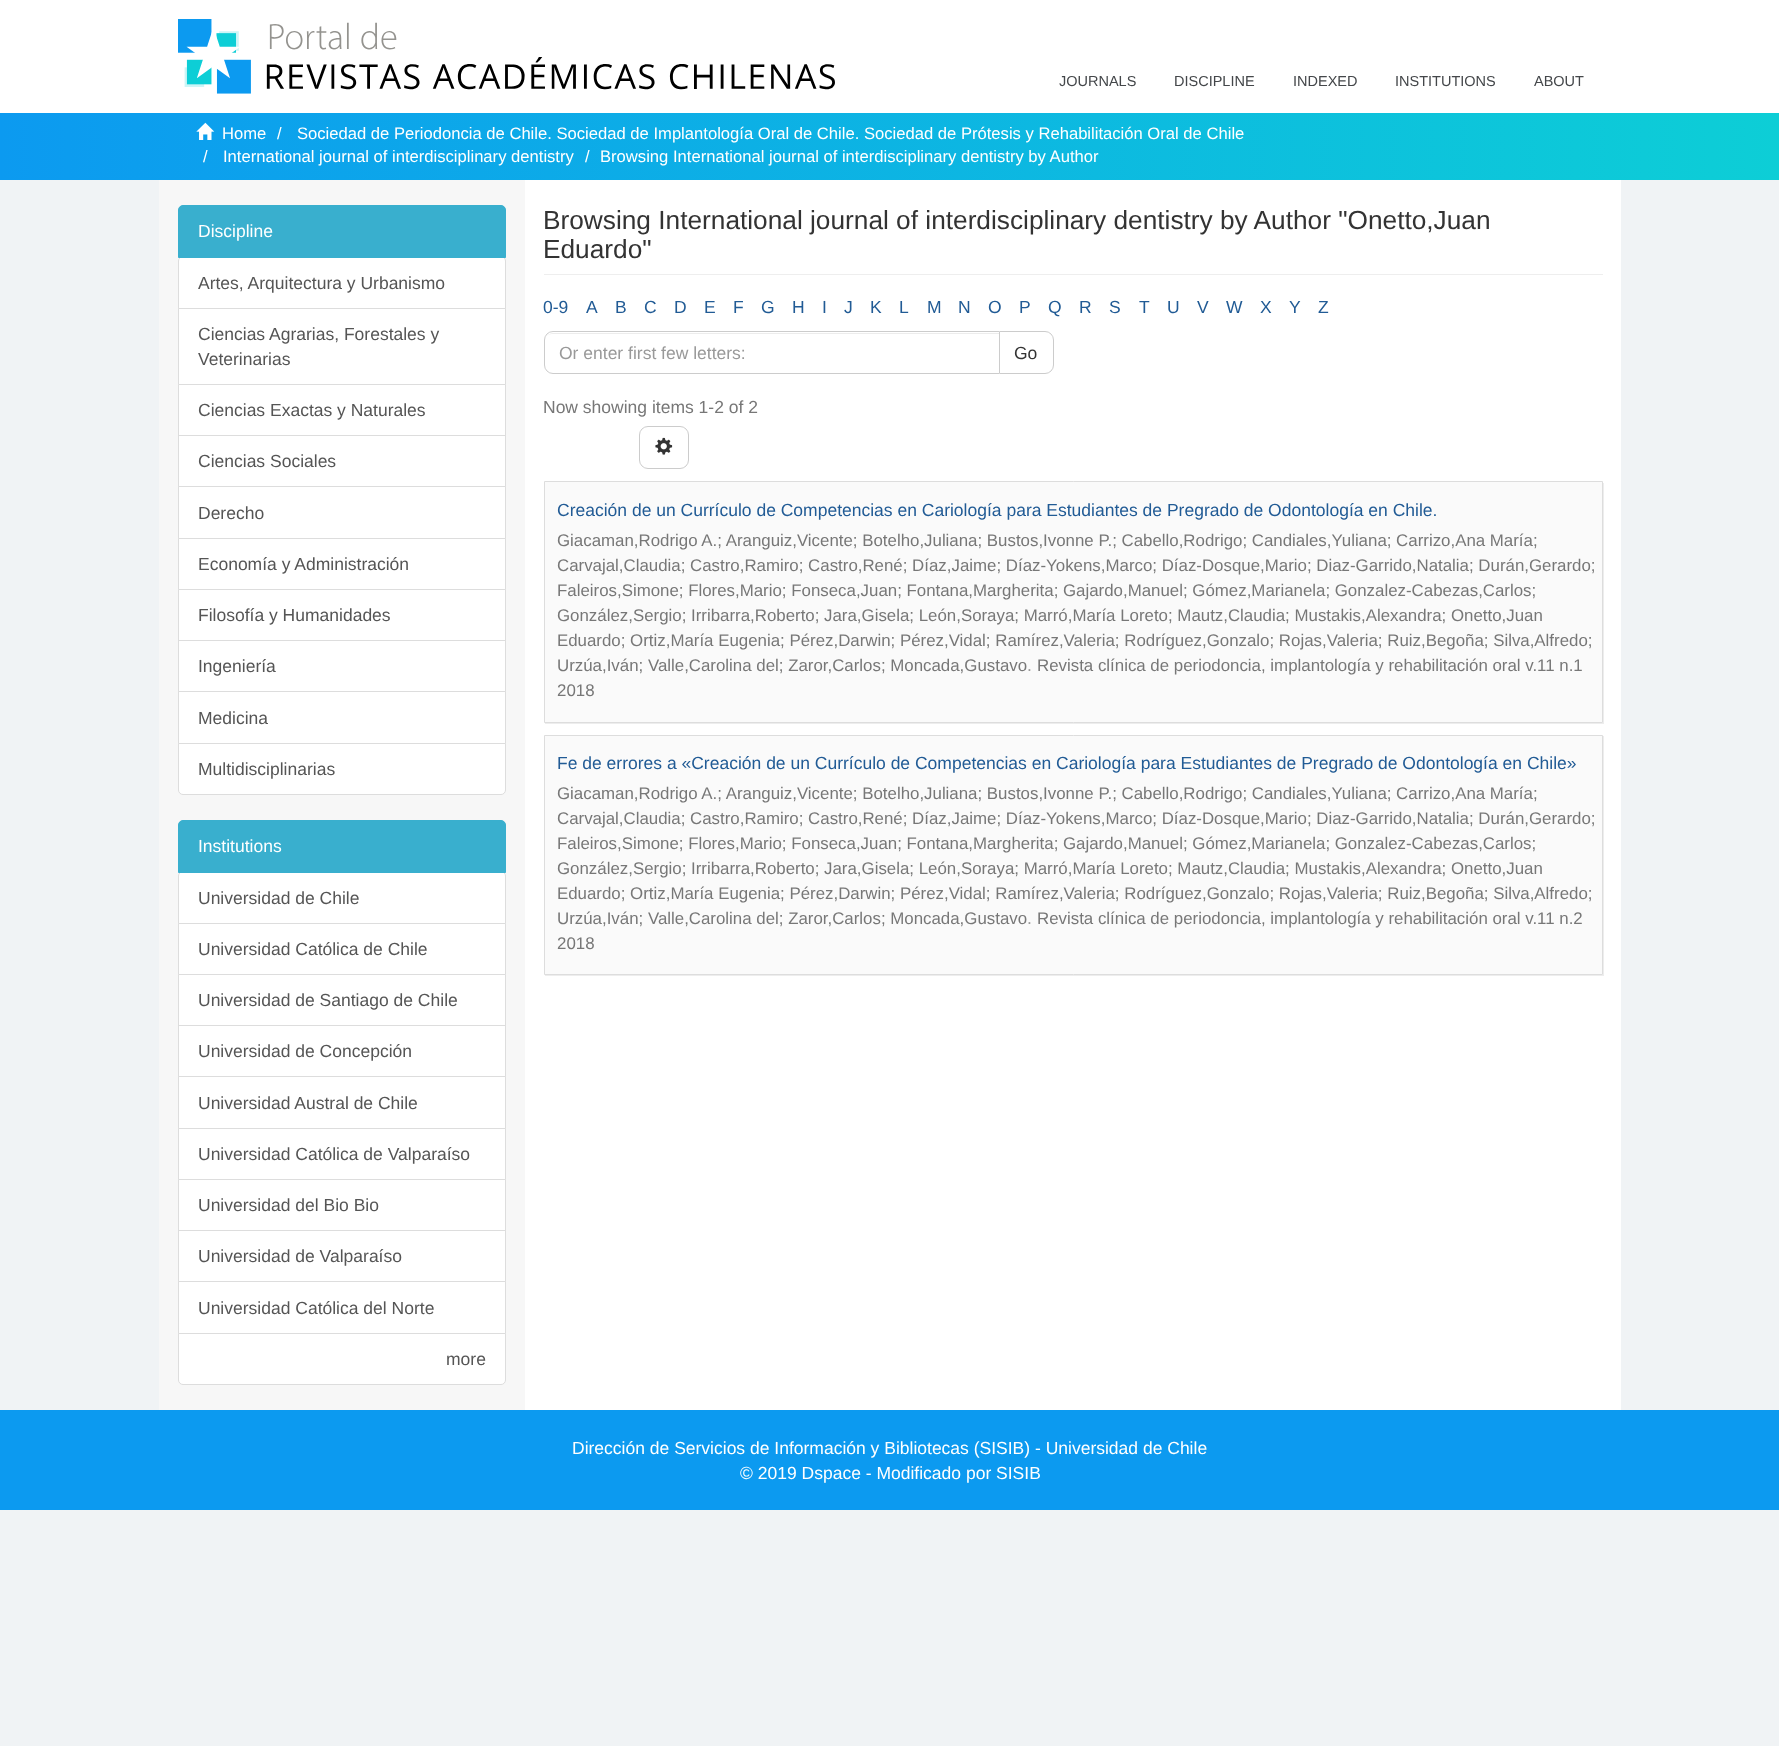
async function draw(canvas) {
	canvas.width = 1779;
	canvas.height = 1746;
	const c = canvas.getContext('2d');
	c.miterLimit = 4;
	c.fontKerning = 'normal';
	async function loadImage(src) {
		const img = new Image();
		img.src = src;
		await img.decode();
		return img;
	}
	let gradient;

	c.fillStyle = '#f0f3f5';
	c.fillRect(0, 0, 1779, 1746);
	c.fillStyle = '#fff';
	c.fillRect(0, 0, 1779, 113);
	c.drawImage(await loadImage('img1.png'), 178, 19, 657, 75);
	c.font = '14.5px Liberation Sans';
	c.fillStyle = '#44474a';
	for (const [text, x, y] of [
		['JOURNALS', 1059, 86],
		['DISCIPLINE', 1174, 86],
		['INDEXED', 1293, 86],
		['INSTITUTIONS', 1395, 86],
		['ABOUT', 1534, 86],
	]) {
		c.fillText(text, x, y);
	}
	gradient = c.createLinearGradient(0, 146, 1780, 146);
	gradient.addColorStop(0, '#0c9af0');
	gradient.addColorStop(1, '#0dced6');
	c.fillStyle = gradient;
	c.fillRect(0, 113, 1779, 67);
	c.drawImage(await loadImage('img2.png'), 196, 122, 19, 18);
	c.font = '16.62px Liberation Sans';
	c.fillStyle = '#fff';
	for (const [text, x, y] of [
		['Home', 222, 139],
		['/', 277, 139],
		['Sociedad de Periodoncia de Chile. Sociedad de Implantología Oral de Chile. Sociedad de Prótesis y Rehabilitación Oral de Chile', 297, 139],
		['/', 203, 162],
		['International journal of interdisciplinary dentistry', 223, 162],
		['/', 585, 162],
		['Browsing International journal of interdisciplinary dentistry by Author', 600, 162],
	]) {
		c.fillText(text, x, y);
	}
	c.fillStyle = '#f7f7f7';
	c.fillRect(159, 180, 366, 1230);
	c.fillStyle = '#fff';
	c.beginPath();
	c.roundRect(178.5, 256.5, 327, 52, [4.5, 4.5, 0, 0]);
	c.fill();
	c.strokeStyle = '#ddd';
	c.stroke();
	c.fillStyle = '#39afce';
	c.beginPath();
	c.roundRect(178.5, 205.5, 327, 52, [4.5, 4.5, 0, 0]);
	c.fill();
	c.strokeStyle = '#39afce';
	c.stroke();
	c.font = '17.5px Liberation Sans';
	c.fillStyle = '#fff';
	c.fillText('Discipline', 198, 237);
	c.fillStyle = '#555';
	c.fillText('Artes, Arquitectura y Urbanismo', 198, 289);
	c.fillStyle = '#fff';
	c.beginPath();
	c.rect(178.5, 308.5, 327, 76);
	c.fill();
	c.strokeStyle = '#ddd';
	c.stroke();
	c.fillStyle = '#555';
	c.fillText('Ciencias Agrarias, Forestales y', 198, 340);
	c.fillText('Veterinarias', 198, 365);
	c.fillStyle = '#fff';
	c.beginPath();
	c.rect(178.5, 384.5, 327, 51);
	c.fill();
	c.stroke();
	c.fillStyle = '#555';
	c.fillText('Ciencias Exactas y Naturales', 198, 416);
	c.fillStyle = '#fff';
	c.fillRect(179, 436, 326, 50);
	c.strokeRect(178.5, 435.5, 327, 52);
	c.fillStyle = '#555';
	c.fillText('Ciencias Sociales', 198, 467);
	c.fillStyle = '#fff';
	c.beginPath();
	c.rect(178.5, 486.5, 327, 52);
	c.fill();
	c.stroke();
	c.fillStyle = '#555';
	c.fillText('Derecho', 198, 519);
	c.fillStyle = '#fff';
	c.beginPath();
	c.rect(178.5, 538.5, 327, 51);
	c.fill();
	c.stroke();
	c.fillStyle = '#555';
	c.fillText('Economía y Administración', 198, 570);
	c.fillStyle = '#fff';
	c.beginPath();
	c.rect(178.5, 589.5, 327, 51);
	c.fill();
	c.stroke();
	c.fillStyle = '#555';
	c.fillText('Filosofía y Humanidades', 198, 621);
	c.fillStyle = '#fff';
	c.fillRect(179, 641, 326, 50);
	c.strokeRect(178.5, 640.5, 327, 52);
	c.fillStyle = '#555';
	c.fillText('Ingeniería', 198, 672);
	c.fillStyle = '#fff';
	c.beginPath();
	c.rect(178.5, 691.5, 327, 52);
	c.fill();
	c.stroke();
	c.fillStyle = '#555';
	c.fillText('Medicina', 198, 724);
	c.fillStyle = '#fff';
	c.beginPath();
	c.roundRect(178.5, 743.5, 327, 51, [0, 0, 4.5, 4.5]);
	c.fill();
	c.stroke();
	c.fillStyle = '#555';
	c.fillText('Multidisciplinarias', 198, 775);
	c.fillStyle = '#fff';
	c.beginPath();
	c.roundRect(178.5, 871.5, 327, 52, [4.5, 4.5, 0, 0]);
	c.fill();
	c.stroke();
	c.fillStyle = '#39afce';
	c.beginPath();
	c.roundRect(178.5, 820.5, 327, 52, [4.5, 4.5, 0, 0]);
	c.fill();
	c.strokeStyle = '#39afce';
	c.stroke();
	c.fillStyle = '#fff';
	c.fillText('Institutions', 198, 852);
	c.fillStyle = '#555';
	c.fillText('Universidad de Chile', 198, 904);
	c.fillStyle = '#fff';
	c.beginPath();
	c.rect(178.5, 923.5, 327, 51);
	c.fill();
	c.strokeStyle = '#ddd';
	c.stroke();
	c.fillStyle = '#555';
	c.fillText('Universidad Católica de Chile', 198, 955);
	c.fillStyle = '#fff';
	c.beginPath();
	c.rect(178.5, 974.5, 327, 51);
	c.fill();
	c.stroke();
	c.fillStyle = '#555';
	c.fillText('Universidad de Santiago de Chile', 198, 1006);
	c.fillStyle = '#fff';
	c.fillRect(179, 1026, 326, 50);
	c.strokeRect(178.5, 1025.5, 327, 52);
	c.fillStyle = '#555';
	c.fillText('Universidad de Concepción', 198, 1057);
	c.fillStyle = '#fff';
	c.beginPath();
	c.rect(178.5, 1076.5, 327, 52);
	c.fill();
	c.stroke();
	c.fillStyle = '#555';
	c.fillText('Universidad Austral de Chile', 198, 1109);
	c.fillStyle = '#fff';
	c.beginPath();
	c.rect(178.5, 1128.5, 327, 51);
	c.fill();
	c.stroke();
	c.fillStyle = '#555';
	c.fillText('Universidad Católica de Valparaíso', 198, 1160);
	c.fillStyle = '#fff';
	c.beginPath();
	c.rect(178.5, 1179.5, 327, 51);
	c.fill();
	c.stroke();
	c.fillStyle = '#555';
	c.fillText('Universidad del Bio Bio', 198, 1211);
	c.fillStyle = '#fff';
	c.fillRect(179, 1231, 326, 50);
	c.strokeRect(178.5, 1230.5, 327, 52);
	c.fillStyle = '#555';
	c.fillText('Universidad de Valparaíso', 198, 1262);
	c.fillStyle = '#fff';
	c.beginPath();
	c.rect(178.5, 1281.5, 327, 52);
	c.fill();
	c.stroke();
	c.fillStyle = '#555';
	c.fillText('Universidad Católica del Norte', 198, 1314);
	c.fillStyle = '#fff';
	c.beginPath();
	c.roundRect(178.5, 1333.5, 327, 51, [0, 0, 4.5, 4.5]);
	c.fill();
	c.stroke();
	c.fillStyle = '#555';
	c.fillText('more', 446, 1365);
	c.fillStyle = '#fff';
	c.fillRect(525, 180, 1096, 1230);
	c.fillStyle = '#eee';
	c.fillRect(544, 274, 1059, 1);
	c.font = '26.25px Liberation Sans';
	c.fillStyle = '#333';
	c.fillText('Browsing International journal of interdisciplinary dentistry by Author "Onetto,Juan', 543, 229);
	c.fillText('Eduardo"', 543, 258);
	c.font = '17.5px Liberation Sans';
	c.fillStyle = '#215b95';
	for (const [text, x, y] of [
		['0-9', 543, 313],
		['A', 586, 313],
		['B', 615, 313],
		['C', 644, 313],
		['D', 674, 313],
		['E', 704, 313],
		['F', 733, 313],
		['G', 761, 313],
		['H', 792, 313],
		['I', 822, 313],
		['J', 844, 313],
		['K', 870, 313],
		['L', 899, 313],
		['M', 927, 313],
		['N', 958, 313],
		['O', 988, 313],
		['P', 1019, 313],
		['Q', 1048, 313],
		['R', 1079, 313],
		['S', 1109, 313],
		['T', 1139, 313],
		['U', 1167, 313],
		['V', 1197, 313],
		['W', 1226, 313],
		['X', 1260, 313],
		['Y', 1289, 313],
		['Z', 1318, 313],
	]) {
		c.fillText(text, x, y);
	}
	c.beginPath();
	c.roundRect(999.5, 331.5, 54, 42, [0, 8.5, 8.5, 0]);
	c.strokeStyle = '#ccc';
	c.stroke();
	c.fillStyle = '#fff';
	c.beginPath();
	c.roundRect(544, 331, 456, 43, [9, 0, 0, 9]);
	c.fill();
	c.fillStyle = '#ececec';
	c.beginPath();
	c.moveTo(552, 334);
	c.lineTo(999, 334);
	c.lineTo(999, 333);
	c.lineTo(553, 333);
	c.bezierCurveTo(549, 333, 545, 337, 545, 341);
	c.bezierCurveTo(545, 337, 548, 334, 552, 334);
	c.closePath();
	c.fill();
	c.beginPath();
	c.roundRect(544.5, 331.5, 455, 42, [8.5, 0, 0, 8.5]);
	c.stroke();
	c.fillStyle = '#999';
	c.fillText('Or enter first few letters:', 559, 359);
	c.fillStyle = '#333';
	c.fillText('Go', 1014, 359);
	c.fillStyle = '#777';
	c.fillText('Now showing items 1-2 of 2', 543, 413);
	c.beginPath();
	c.roundRect(639.5, 426.5, 49, 42, 8.5);
	c.stroke();
	c.drawImage(await loadImage('img3.png'), 655, 437, 18, 18);
	c.save();
	c.beginPath();
	c.moveTo(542, 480);
	c.lineTo(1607, 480);
	c.lineTo(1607, 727);
	c.lineTo(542, 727);
	c.closePath();
	c.moveTo(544, 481);
	c.lineTo(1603, 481);
	c.lineTo(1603, 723);
	c.lineTo(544, 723);
	c.closePath();
	c.clip('evenodd');
	c.fillStyle = '#aaaaaa36';
	c.filter = 'blur(0.5px)';
	c.beginPath();
	c.rect(545, 483, 1059, 241);
	c.fill();
	c.filter = 'none';
	c.restore();
	c.fillStyle = '#e6e6e636';
	c.beginPath();
	c.rect(544.5, 481.5, 1058, 241);
	c.fill();
	c.strokeStyle = '#ddd';
	c.stroke();
	c.fillStyle = '#215b95';
	c.fillText('Creación de un Currículo de Competencias en Cariología para Estudiantes de Pregrado de Odontología en Chile.', 557, 516);
	c.font = '16.88px Liberation Sans';
	c.fillStyle = '#777';
	for (const [text, x, y] of [
		['Giacaman,Rodrigo A.; Aranguiz,Vicente; Botelho,Juliana; Bustos,Ivonne P.; Cabello,Rodrigo; Candiales,Yuliana; Carrizo,Ana María;', 557, 546],
		['Carvajal,Claudia; Castro,Ramiro; Castro,René; Díaz,Jaime; Díaz-Yokens,Marco; Díaz-Dosque,Mario; Diaz-Garrido,Natalia; Durán,Gerardo;', 557, 571],
		['Faleiros,Simone; Flores,Mario; Fonseca,Juan; Fontana,Margherita; Gajardo,Manuel; Gómez,Marianela; Gonzalez-Cabezas,Carlos;', 557, 596],
		['González,Sergio; Irribarra,Roberto; Jara,Gisela; León,Soraya; Marró,María Loreto; Mautz,Claudia; Mustakis,Alexandra; Onetto,Juan', 557, 621],
		['Eduardo; Ortiz,María Eugenia; Pérez,Darwin; Pérez,Vidal; Ramírez,Valeria; Rodríguez,Gonzalo; Rojas,Valeria; Ruiz,Begoña; Silva,Alfredo;', 557, 646],
		['Urzúa,Iván; Valle,Carolina del; Zaror,Carlos; Moncada,Gustavo', 557, 671],
	]) {
		c.fillText(text, x, y);
	}
	c.font = '17.5px Liberation Sans';
	c.fillStyle = '#999';
	c.fillText('.', 1027, 671);
	c.font = '16.88px Liberation Sans';
	c.fillStyle = '#777';
	c.fillText('Revista clínica de periodoncia, implantología y rehabilitación oral v.11 n.1', 1037, 671);
	c.fillText('2018', 557, 696);
	c.save();
	c.beginPath();
	c.moveTo(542, 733);
	c.lineTo(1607, 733);
	c.lineTo(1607, 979);
	c.lineTo(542, 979);
	c.closePath();
	c.moveTo(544, 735);
	c.lineTo(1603, 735);
	c.lineTo(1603, 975);
	c.lineTo(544, 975);
	c.closePath();
	c.clip('evenodd');
	c.fillStyle = '#aaaaaa36';
	c.filter = 'blur(0.5px)';
	c.beginPath();
	c.rect(545, 736, 1059, 240);
	c.fill();
	c.filter = 'none';
	c.restore();
	c.fillStyle = '#e6e6e636';
	c.beginPath();
	c.rect(544.5, 735.5, 1058, 239);
	c.fill();
	c.stroke();
	c.font = '17.5px Liberation Sans';
	c.fillStyle = '#215b95';
	c.fillText('Fe de errores a «Creación de un Currículo de Competencias en Cariología para Estudiantes de Pregrado de Odontología en Chile»', 557, 769);
	c.font = '16.88px Liberation Sans';
	c.fillStyle = '#777';
	for (const [text, x, y] of [
		['Giacaman,Rodrigo A.; Aranguiz,Vicente; Botelho,Juliana; Bustos,Ivonne P.; Cabello,Rodrigo; Candiales,Yuliana; Carrizo,Ana María;', 557, 799],
		['Carvajal,Claudia; Castro,Ramiro; Castro,René; Díaz,Jaime; Díaz-Yokens,Marco; Díaz-Dosque,Mario; Diaz-Garrido,Natalia; Durán,Gerardo;', 557, 824],
		['Faleiros,Simone; Flores,Mario; Fonseca,Juan; Fontana,Margherita; Gajardo,Manuel; Gómez,Marianela; Gonzalez-Cabezas,Carlos;', 557, 849],
		['González,Sergio; Irribarra,Roberto; Jara,Gisela; León,Soraya; Marró,María Loreto; Mautz,Claudia; Mustakis,Alexandra; Onetto,Juan', 557, 874],
		['Eduardo; Ortiz,María Eugenia; Pérez,Darwin; Pérez,Vidal; Ramírez,Valeria; Rodríguez,Gonzalo; Rojas,Valeria; Ruiz,Begoña; Silva,Alfredo;', 557, 899],
		['Urzúa,Iván; Valle,Carolina del; Zaror,Carlos; Moncada,Gustavo', 557, 924],
	]) {
		c.fillText(text, x, y);
	}
	c.font = '17.5px Liberation Sans';
	c.fillStyle = '#999';
	c.fillText('.', 1027, 924);
	c.font = '16.88px Liberation Sans';
	c.fillStyle = '#777';
	c.fillText('Revista clínica de periodoncia, implantología y rehabilitación oral v.11 n.2', 1037, 924);
	c.fillText('2018', 557, 949);
	c.fillStyle = '#0c9af0';
	c.fillRect(0, 1410, 1779, 100);
	c.font = '17.5px Liberation Sans';
	c.fillStyle = '#fff';
	c.fillText('Dirección de Servicios de Información y Bibliotecas (SISIB) - Universidad de Chile', 572, 1454);
	c.fillText('© 2019 Dspace - Modificado por SISIB', 740, 1479);
}

draw(document.querySelector('canvas'));
